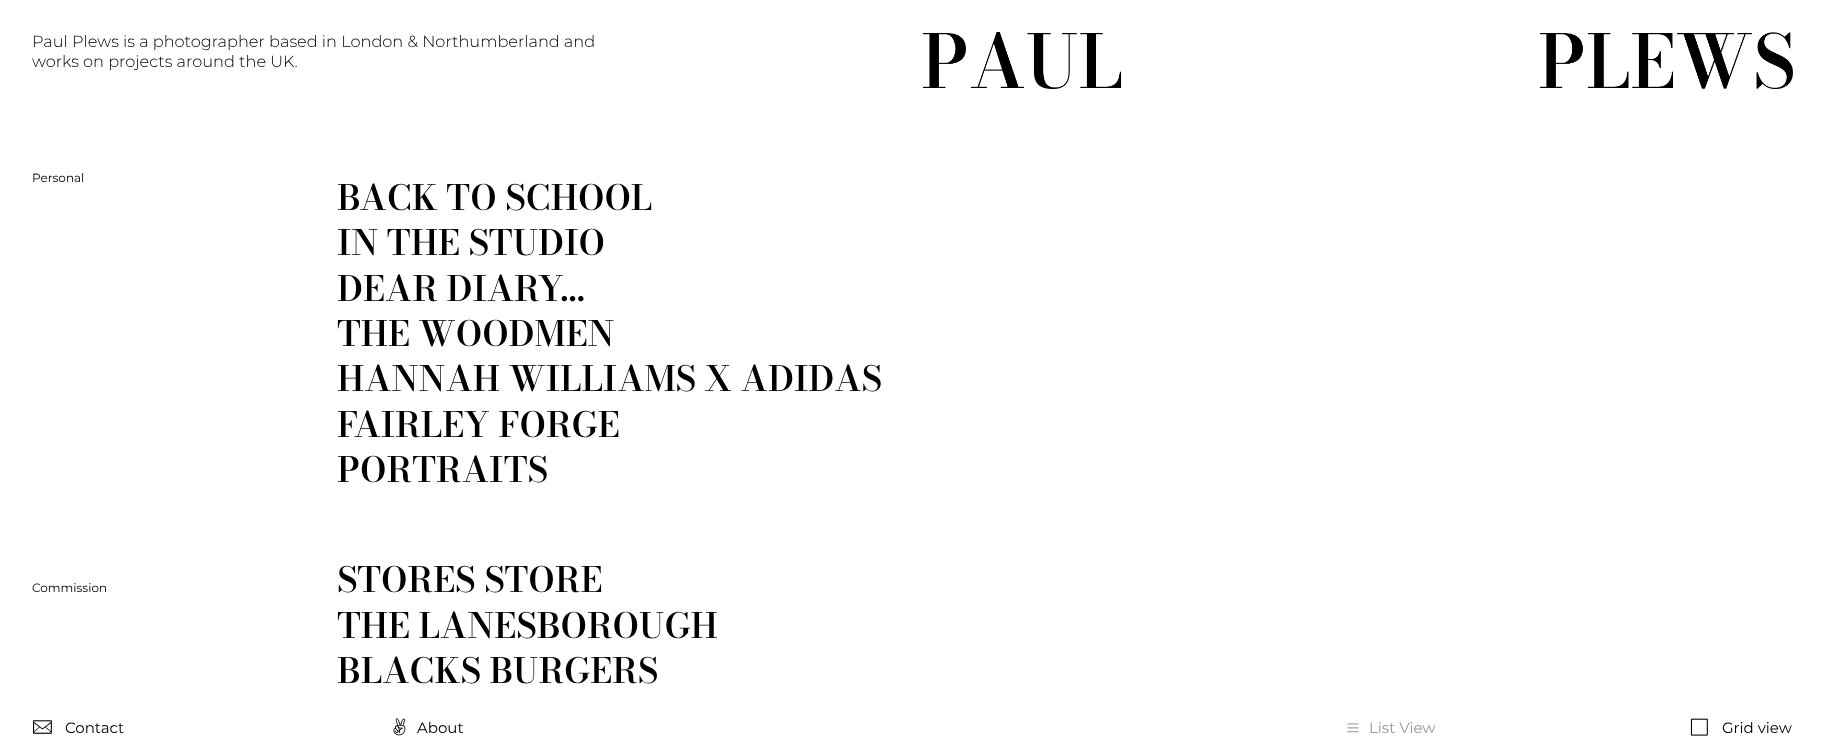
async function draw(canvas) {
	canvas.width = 1825;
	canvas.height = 751;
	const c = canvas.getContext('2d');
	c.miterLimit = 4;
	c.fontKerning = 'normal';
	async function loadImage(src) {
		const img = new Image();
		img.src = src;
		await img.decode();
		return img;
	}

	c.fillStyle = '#fff';
	c.fillRect(0, 0, 1825, 751);
	c.font = '300 16.2px Montserrat';
	c.fillStyle = '#000';
	c.fillText('Paul Plews is a photographer based in London & Northumberland and', 32, 47);
	c.fillText('works on projects around the UK.', 32, 67);
	c.drawImage(await loadImage('img1.png'), 923, 32, 870, 57);
	c.font = '12px Montserrat';
	c.fillText('Personal', 32, 182);
	c.font = '600 34.6px Bodoni Moda';
	for (const [text, x, y] of [
		['BACK TO SCHOOL', 337, 210],
		['IN THE STUDIO', 337, 255],
		['DEAR DIARY...', 337, 301],
		['THE WOODMEN', 337, 346],
		['HANNAH WILLIAMS X ADIDAS', 337, 391],
		['FAIRLEY FORGE', 337, 437],
		['PORTRAITS', 337, 482],
	]) {
		c.fillText(text, x, y);
	}
	c.font = '12px Montserrat';
	c.fillText('Commission', 32, 592);
	c.font = '600 34.6px Bodoni Moda';
	for (const [text, x, y] of [
		['STORES STORE', 337, 592],
		['THE LANESBOROUGH', 337, 638],
		['BLACKS BURGERS', 337, 683],
	]) {
		c.fillText(text, x, y);
	}
	c.drawImage(await loadImage('img2.png'), 33, 720, 19, 14);
	c.font = '15px Montserrat';
	c.fillText('Contact', 65, 733);
	c.drawImage(await loadImage('img3.png'), 393, 718, 13, 18);
	c.fillText('About', 417, 733);
	c.drawImage(await loadImage('img4.png'), 1347, 723, 12, 10);
	c.fillStyle = '#999';
	c.fillText('List View', 1369, 733);
	c.drawImage(await loadImage('img5.png'), 1690, 718, 18, 18);
	c.fillStyle = '#000';
	c.fillText('Grid view', 1722, 733);
}

draw(document.querySelector('canvas'));
